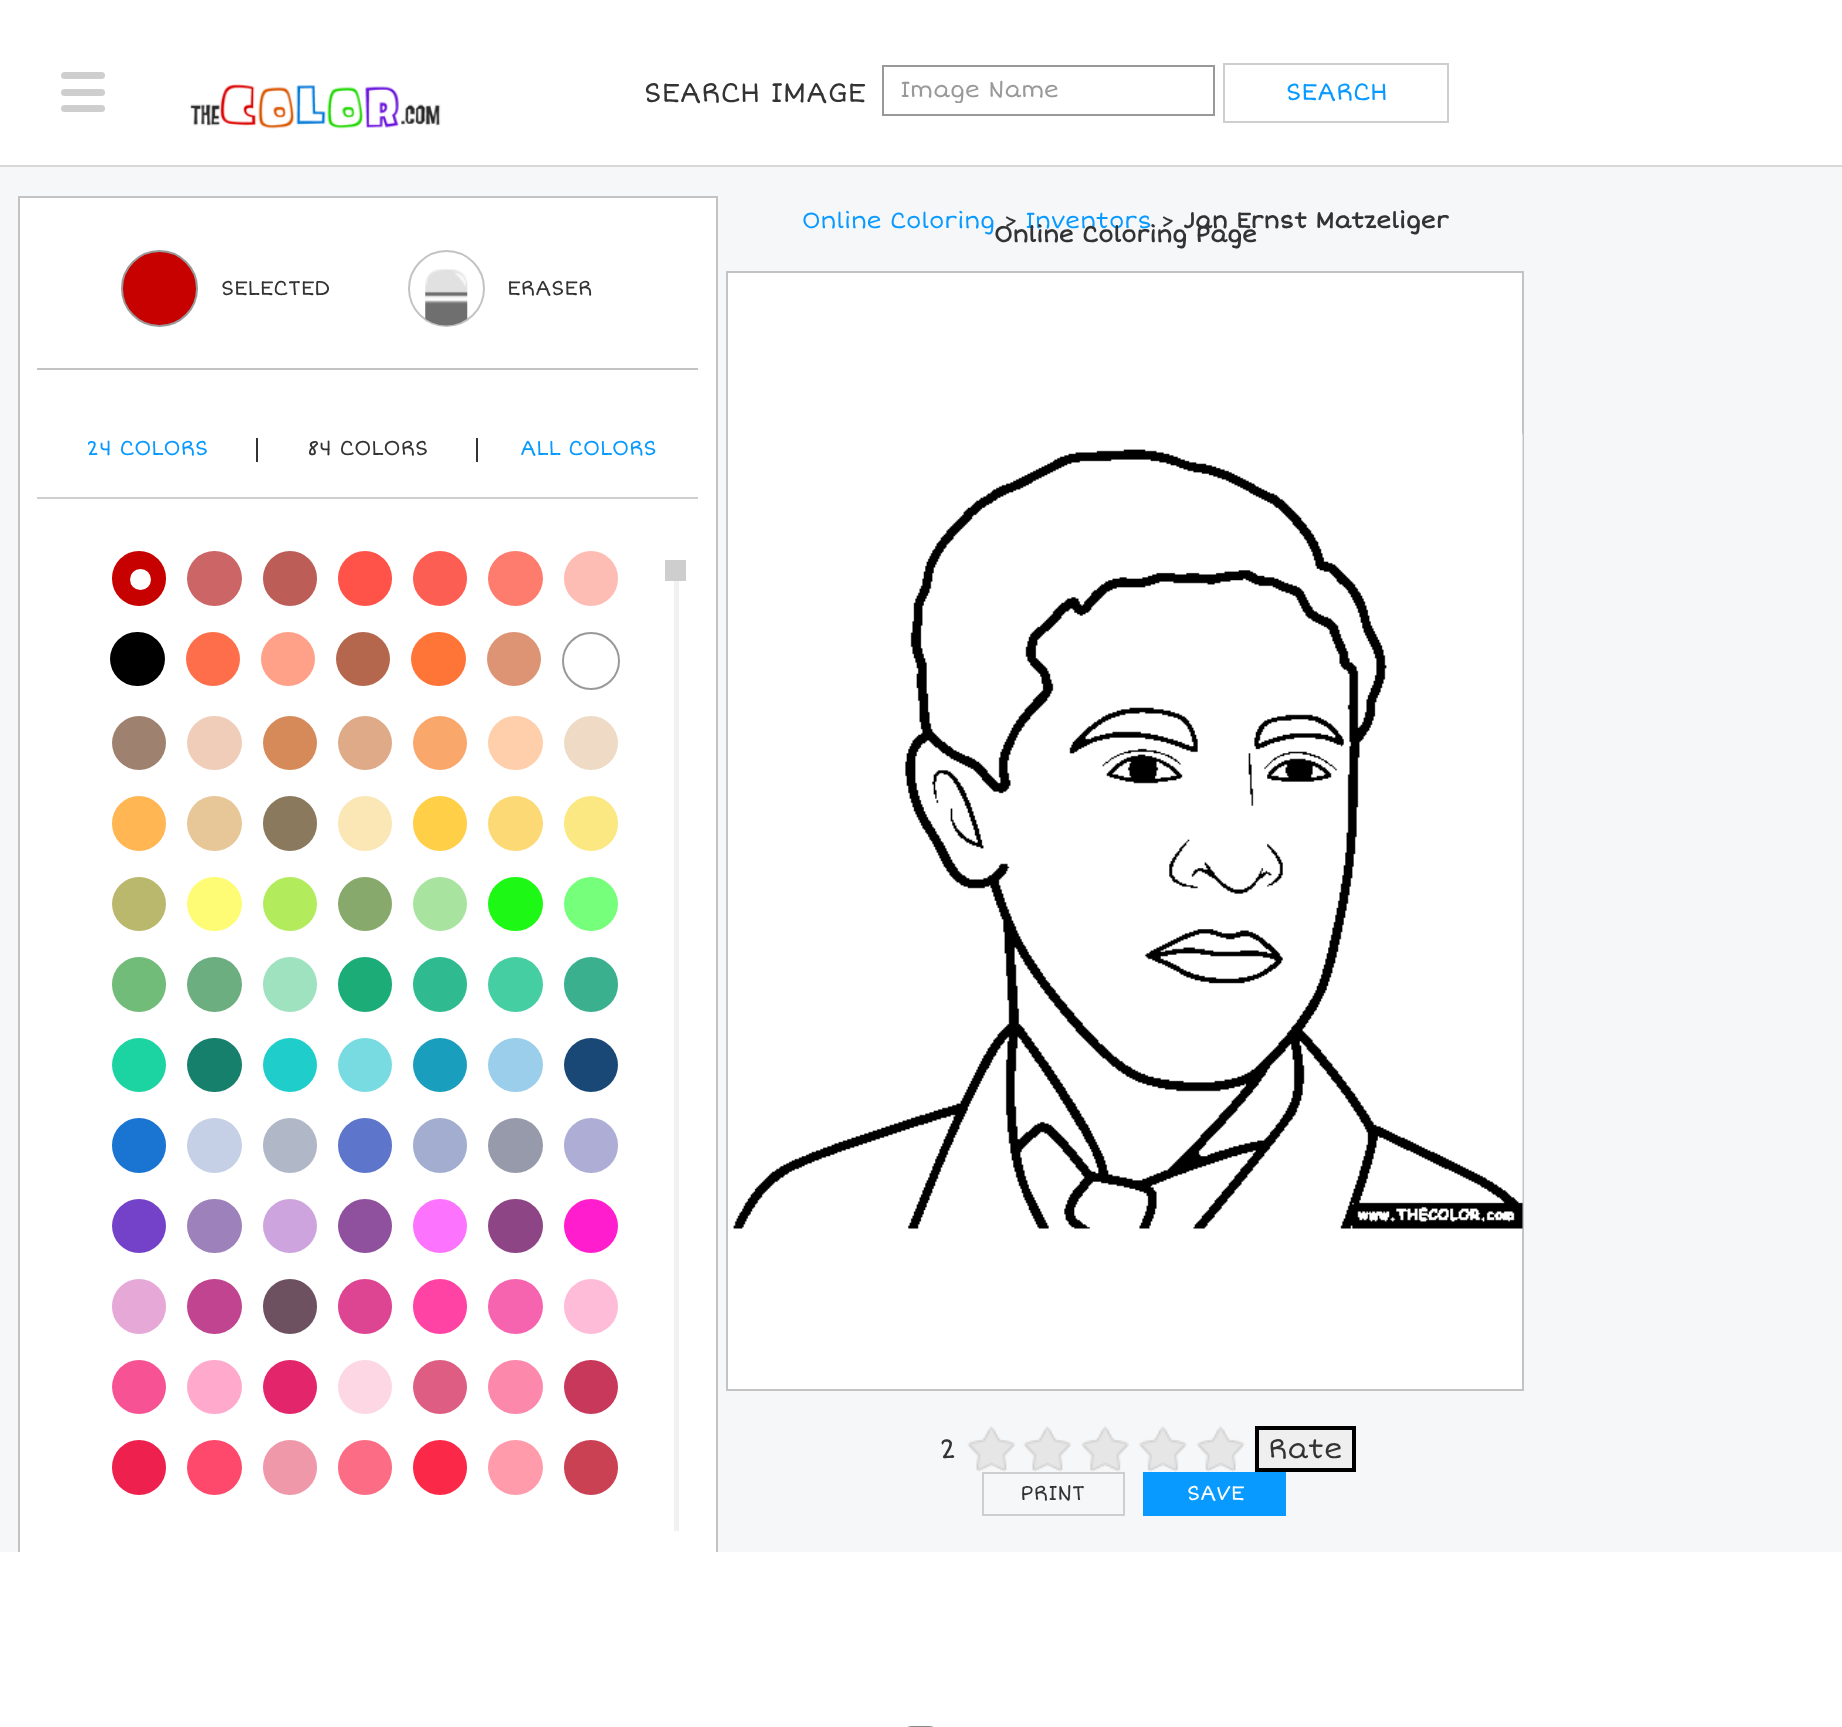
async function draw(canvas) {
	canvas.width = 1842;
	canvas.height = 1727;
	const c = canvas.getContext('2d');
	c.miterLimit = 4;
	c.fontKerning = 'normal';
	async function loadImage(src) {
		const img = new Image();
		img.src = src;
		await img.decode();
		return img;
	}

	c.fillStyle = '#f6f7f9';
	c.fillRect(0, 0, 1842, 1727);
	c.fillStyle = '#fff';
	c.fillRect(0, 0, 1842, 165);
	c.fillStyle = '#d7d7d7';
	c.fillRect(0, 165, 1842, 2);
	c.fillStyle = '#cecece';
	c.beginPath();
	c.roundRect(61, 72, 44, 7, 3.5);
	c.fill();
	c.beginPath();
	c.roundRect(61, 89, 44, 7, 3.5);
	c.fill();
	c.beginPath();
	c.roundRect(61, 105, 44, 7, 3.5);
	c.fill();
	c.drawImage(await loadImage('img1.png'), 189, 84, 252, 45);
	c.font = '28px Short Stack';
	c.fillStyle = '#333';
	c.fillText('SEARCH IMAGE', 644, 102);
	c.strokeStyle = '#999';
	c.lineWidth = 2;
	c.strokeRect(883, 66, 331, 49);
	c.save();
	c.beginPath();
	c.rect(900, 75, 290, 28);
	c.clip();
	c.font = '22.75px Short Stack';
	c.fillStyle = '#999';
	c.fillText('Image Name', 900, 97);
	c.restore();
	c.strokeStyle = '#cecece';
	c.strokeRect(1224, 64, 224, 58);
	c.font = '24.5px Short Stack';
	c.fillStyle = '#099aff';
	c.fillText('SEARCH', 1286, 100);
	c.fillStyle = '#fff';
	c.fillRect(20, 198, 696, 1354);
	c.strokeStyle = '#c3c3c3';
	c.strokeRect(19, 197, 698, 1381);
	c.fillStyle = '#c3c3c3';
	c.fillRect(37, 368, 661, 2);
	c.fillStyle = '#c70000';
	c.beginPath();
	c.arc(159.5, 288.5, 37.5, 0, 2 * Math.PI);
	c.fill();
	c.strokeStyle = '#999';
	c.stroke();
	c.font = '21px Short Stack';
	c.fillStyle = '#333';
	c.fillText('SELECTED', 221, 295);
	c.beginPath();
	c.arc(446.5, 288.5, 37.5, 0, 2 * Math.PI);
	c.strokeStyle = '#c3c3c3';
	c.stroke();
	c.drawImage(await loadImage('img2.png'), 425, 269, 43, 57);
	c.fillText('ERASER', 507, 295);
	c.fillStyle = '#cecece';
	c.fillRect(37, 497, 661, 2);
	c.fillStyle = '#099aff';
	c.fillText('24 COLORS', 86, 455);
	c.fillStyle = '#333';
	c.fillRect(256, 438, 2, 24);
	c.fillText('84 COLORS', 307, 455);
	c.fillRect(476, 438, 2, 24);
	c.fillStyle = '#099aff';
	c.fillText('ALL COLORS', 520, 455);
	c.fillStyle = '#c70000';
	c.beginPath();
	c.roundRect(112, 551, 54, 55, 27);
	c.fill();
	c.fillStyle = '#fff';
	c.beginPath();
	c.arc(140.5, 579.5, 10.5, 0, 2 * Math.PI);
	c.fill();
	c.fillStyle = '#c66';
	c.beginPath();
	c.arc(214.5, 578.5, 27.5, 0, 2 * Math.PI);
	c.fill();
	c.fillStyle = '#bc5d58';
	c.beginPath();
	c.roundRect(263, 551, 54, 55, 27);
	c.fill();
	c.fillStyle = '#ff5349';
	c.beginPath();
	c.roundRect(338, 551, 54, 55, 27);
	c.fill();
	c.fillStyle = '#fd5e53';
	c.beginPath();
	c.roundRect(413, 551, 54, 55, 27);
	c.fill();
	c.fillStyle = '#fd7c6e';
	c.beginPath();
	c.arc(515.5, 578.5, 27.5, 0, 2 * Math.PI);
	c.fill();
	c.fillStyle = '#fdbcb4';
	c.beginPath();
	c.roundRect(564, 551, 54, 55, 27);
	c.fill();
	c.fillStyle = '#000';
	c.beginPath();
	c.roundRect(110, 632, 55, 54, 27);
	c.fill();
	c.fillStyle = '#ff6e4a';
	c.beginPath();
	c.arc(213, 659, 27, 0, 2 * Math.PI);
	c.fill();
	c.fillStyle = '#ffa089';
	c.beginPath();
	c.arc(288, 659, 27, 0, 2 * Math.PI);
	c.fill();
	c.fillStyle = '#b4674d';
	c.beginPath();
	c.arc(363, 659, 27, 0, 2 * Math.PI);
	c.fill();
	c.fillStyle = '#ff7538';
	c.beginPath();
	c.roundRect(411, 632, 55, 54, 27);
	c.fill();
	c.fillStyle = '#dd9475';
	c.beginPath();
	c.arc(514, 659, 27, 0, 2 * Math.PI);
	c.fill();
	c.beginPath();
	c.arc(591, 661, 28, 0, 2 * Math.PI);
	c.strokeStyle = '#999';
	c.stroke();
	c.fillStyle = '#9f8170';
	c.beginPath();
	c.arc(139, 743, 27, 0, 2 * Math.PI);
	c.fill();
	c.fillStyle = '#efcdb8';
	c.beginPath();
	c.roundRect(187, 716, 55, 54, 27);
	c.fill();
	c.fillStyle = '#d68a59';
	c.beginPath();
	c.arc(290, 743, 27, 0, 2 * Math.PI);
	c.fill();
	c.fillStyle = '#deaa88';
	c.beginPath();
	c.arc(365, 743, 27, 0, 2 * Math.PI);
	c.fill();
	c.fillStyle = '#faa76c';
	c.beginPath();
	c.arc(440, 743, 27, 0, 2 * Math.PI);
	c.fill();
	c.fillStyle = '#ffcfab';
	c.beginPath();
	c.roundRect(488, 716, 55, 54, 27);
	c.fill();
	c.fillStyle = '#efdbc5';
	c.beginPath();
	c.arc(591, 743, 27, 0, 2 * Math.PI);
	c.fill();
	c.fillStyle = '#ffb653';
	c.beginPath();
	c.roundRect(112, 796, 54, 55, 27);
	c.fill();
	c.fillStyle = '#e7c697';
	c.beginPath();
	c.arc(214.5, 823.5, 27.5, 0, 2 * Math.PI);
	c.fill();
	c.fillStyle = '#8a795d';
	c.beginPath();
	c.roundRect(263, 796, 54, 55, 27);
	c.fill();
	c.fillStyle = '#fae7b5';
	c.beginPath();
	c.roundRect(338, 796, 54, 55, 27);
	c.fill();
	c.fillStyle = '#ffcf48';
	c.beginPath();
	c.roundRect(413, 796, 54, 55, 27);
	c.fill();
	c.fillStyle = '#fcd975';
	c.beginPath();
	c.arc(515.5, 823.5, 27.5, 0, 2 * Math.PI);
	c.fill();
	c.fillStyle = '#fce883';
	c.beginPath();
	c.roundRect(564, 796, 54, 55, 27);
	c.fill();
	c.fillStyle = '#bab86c';
	c.beginPath();
	c.arc(139, 904, 27, 0, 2 * Math.PI);
	c.fill();
	c.fillStyle = '#fdfc74';
	c.beginPath();
	c.roundRect(187, 877, 55, 54, 27);
	c.fill();
	c.fillStyle = '#b2ec5d';
	c.beginPath();
	c.arc(290, 904, 27, 0, 2 * Math.PI);
	c.fill();
	c.fillStyle = '#87a96b';
	c.beginPath();
	c.arc(365, 904, 27, 0, 2 * Math.PI);
	c.fill();
	c.fillStyle = '#a8e4a0';
	c.beginPath();
	c.arc(440, 904, 27, 0, 2 * Math.PI);
	c.fill();
	c.fillStyle = '#1df914';
	c.beginPath();
	c.roundRect(488, 877, 55, 54, 27);
	c.fill();
	c.fillStyle = '#76ff7a';
	c.beginPath();
	c.arc(591, 904, 27, 0, 2 * Math.PI);
	c.fill();
	c.fillStyle = '#71bc78';
	c.beginPath();
	c.roundRect(112, 957, 54, 55, 27);
	c.fill();
	c.fillStyle = '#6dae81';
	c.beginPath();
	c.arc(214.5, 984.5, 27.5, 0, 2 * Math.PI);
	c.fill();
	c.fillStyle = '#9fe2bf';
	c.beginPath();
	c.roundRect(263, 957, 54, 55, 27);
	c.fill();
	c.fillStyle = '#1cac78';
	c.beginPath();
	c.roundRect(338, 957, 54, 55, 27);
	c.fill();
	c.fillStyle = '#30ba8f';
	c.beginPath();
	c.roundRect(413, 957, 54, 55, 27);
	c.fill();
	c.fillStyle = '#45cea2';
	c.beginPath();
	c.arc(515.5, 984.5, 27.5, 0, 2 * Math.PI);
	c.fill();
	c.fillStyle = '#3bb08f';
	c.beginPath();
	c.roundRect(564, 957, 54, 55, 27);
	c.fill();
	c.fillStyle = '#1cd3a2';
	c.beginPath();
	c.arc(139, 1065, 27, 0, 2 * Math.PI);
	c.fill();
	c.fillStyle = '#17806d';
	c.beginPath();
	c.roundRect(187, 1038, 55, 54, 27);
	c.fill();
	c.fillStyle = '#1fcecb';
	c.beginPath();
	c.arc(290, 1065, 27, 0, 2 * Math.PI);
	c.fill();
	c.fillStyle = '#78dbe2';
	c.beginPath();
	c.arc(365, 1065, 27, 0, 2 * Math.PI);
	c.fill();
	c.fillStyle = '#199ebd';
	c.beginPath();
	c.arc(440, 1065, 27, 0, 2 * Math.PI);
	c.fill();
	c.fillStyle = '#9aceeb';
	c.beginPath();
	c.roundRect(488, 1038, 55, 54, 27);
	c.fill();
	c.fillStyle = '#1a4876';
	c.beginPath();
	c.arc(591, 1065, 27, 0, 2 * Math.PI);
	c.fill();
	c.fillStyle = '#1974d2';
	c.beginPath();
	c.roundRect(112, 1118, 54, 55, 27);
	c.fill();
	c.fillStyle = '#c5d0e6';
	c.beginPath();
	c.arc(214.5, 1145.5, 27.5, 0, 2 * Math.PI);
	c.fill();
	c.fillStyle = '#b0b7c6';
	c.beginPath();
	c.roundRect(263, 1118, 54, 55, 27);
	c.fill();
	c.fillStyle = '#5d76cb';
	c.beginPath();
	c.roundRect(338, 1118, 54, 55, 27);
	c.fill();
	c.fillStyle = '#a2add0';
	c.beginPath();
	c.roundRect(413, 1118, 54, 55, 27);
	c.fill();
	c.fillStyle = '#979aaa';
	c.beginPath();
	c.arc(515.5, 1145.5, 27.5, 0, 2 * Math.PI);
	c.fill();
	c.fillStyle = '#adadd6';
	c.beginPath();
	c.roundRect(564, 1118, 54, 55, 27);
	c.fill();
	c.fillStyle = '#7442c8';
	c.beginPath();
	c.arc(139, 1226, 27, 0, 2 * Math.PI);
	c.fill();
	c.fillStyle = '#9d81ba';
	c.beginPath();
	c.roundRect(187, 1199, 55, 54, 27);
	c.fill();
	c.fillStyle = '#cda4de';
	c.beginPath();
	c.arc(290, 1226, 27, 0, 2 * Math.PI);
	c.fill();
	c.fillStyle = '#8f509d';
	c.beginPath();
	c.arc(365, 1226, 27, 0, 2 * Math.PI);
	c.fill();
	c.fillStyle = '#fc74fd';
	c.beginPath();
	c.arc(440, 1226, 27, 0, 2 * Math.PI);
	c.fill();
	c.fillStyle = '#8e4585';
	c.beginPath();
	c.roundRect(488, 1199, 55, 54, 27);
	c.fill();
	c.fillStyle = '#ff1dce';
	c.beginPath();
	c.arc(591, 1226, 27, 0, 2 * Math.PI);
	c.fill();
	c.fillStyle = '#e6a8d7';
	c.beginPath();
	c.roundRect(112, 1279, 54, 55, 27);
	c.fill();
	c.fillStyle = '#c0448f';
	c.beginPath();
	c.arc(214.5, 1306.5, 27.5, 0, 2 * Math.PI);
	c.fill();
	c.fillStyle = '#6e5160';
	c.beginPath();
	c.roundRect(263, 1279, 54, 55, 27);
	c.fill();
	c.fillStyle = '#dd4492';
	c.beginPath();
	c.roundRect(338, 1279, 54, 55, 27);
	c.fill();
	c.fillStyle = '#ff43a4';
	c.beginPath();
	c.roundRect(413, 1279, 54, 55, 27);
	c.fill();
	c.fillStyle = '#f664af';
	c.beginPath();
	c.arc(515.5, 1306.5, 27.5, 0, 2 * Math.PI);
	c.fill();
	c.fillStyle = '#ffbcd9';
	c.beginPath();
	c.roundRect(564, 1279, 54, 55, 27);
	c.fill();
	c.fillStyle = '#f75394';
	c.beginPath();
	c.arc(139, 1387, 27, 0, 2 * Math.PI);
	c.fill();
	c.fillStyle = '#fac';
	c.beginPath();
	c.roundRect(187, 1360, 55, 54, 27);
	c.fill();
	c.fillStyle = '#e3256b';
	c.beginPath();
	c.arc(290, 1387, 27, 0, 2 * Math.PI);
	c.fill();
	c.fillStyle = '#fdd7e4';
	c.beginPath();
	c.arc(365, 1387, 27, 0, 2 * Math.PI);
	c.fill();
	c.fillStyle = '#de5d83';
	c.beginPath();
	c.arc(440, 1387, 27, 0, 2 * Math.PI);
	c.fill();
	c.fillStyle = '#fc89ac';
	c.beginPath();
	c.roundRect(488, 1360, 55, 54, 27);
	c.fill();
	c.fillStyle = '#c8385a';
	c.beginPath();
	c.arc(591, 1387, 27, 0, 2 * Math.PI);
	c.fill();
	c.fillStyle = '#ee204d';
	c.beginPath();
	c.roundRect(112, 1440, 54, 55, 27);
	c.fill();
	c.fillStyle = '#ff496c';
	c.beginPath();
	c.arc(214.5, 1467.5, 27.5, 0, 2 * Math.PI);
	c.fill();
	c.fillStyle = '#ef98aa';
	c.beginPath();
	c.roundRect(263, 1440, 54, 55, 27);
	c.fill();
	c.fillStyle = '#fc6c85';
	c.beginPath();
	c.roundRect(338, 1440, 54, 55, 27);
	c.fill();
	c.fillStyle = '#fc2847';
	c.beginPath();
	c.roundRect(413, 1440, 54, 55, 27);
	c.fill();
	c.fillStyle = '#ff9baa';
	c.beginPath();
	c.arc(515.5, 1467.5, 27.5, 0, 2 * Math.PI);
	c.fill();
	c.fillStyle = '#cb4154';
	c.beginPath();
	c.roundRect(564, 1440, 54, 55, 27);
	c.fill();
	c.fillStyle = '#f1f1f1';
	c.fillRect(674, 581, 5, 950);
	c.fillStyle = '#cecece';
	c.fillRect(665, 560, 21, 21);
	c.font = '22.75px Short Stack';
	c.fillStyle = '#099aff';
	c.fillText('Online Coloring', 802, 228);
	c.fillStyle = '#333';
	c.fillText('>', 1004, 228);
	c.fillStyle = '#099aff';
	c.fillText('Inventors', 1025, 228);
	c.fillStyle = '#333';
	c.fillText('>', 1161, 228);
	c.font = 'bold 22.75px Short Stack';
	c.fillText('Jan Ernst Matzeliger', 1183, 228);
	c.fillText('Online Coloring Page', 994, 242);
	c.fillStyle = '#fff';
	c.beginPath();
	c.rect(727, 272, 796, 1118);
	c.fill();
	c.strokeStyle = '#c3c3c3';
	c.stroke();
	c.drawImage(await loadImage('img3.png'), 733, 434, 790, 795);
	c.font = '28px Short Stack';
	c.fillStyle = '#333';
	c.fillText('2', 939, 1458);
	c.drawImage(await loadImage('img4.png'), 967, 1426, 48, 46);
	c.drawImage(await loadImage('img5.png'), 1023, 1426, 48, 46);
	c.drawImage(await loadImage('img6.png'), 1081, 1426, 48, 46);
	c.drawImage(await loadImage('img7.png'), 1139, 1426, 48, 46);
	c.drawImage(await loadImage('img8.png'), 1197, 1426, 48, 46);
	c.fillStyle = '#efefef';
	c.beginPath();
	c.rect(1257, 1428, 97, 42);
	c.fill();
	c.strokeStyle = '#000';
	c.lineWidth = 4;
	c.stroke();
	c.fillStyle = '#333';
	c.fillText('Rate', 1268, 1458);
	c.strokeStyle = '#cecece';
	c.lineWidth = 2;
	c.strokeRect(983, 1473, 141, 42);
	c.font = '21px Short Stack';
	c.fillText('PRINT', 1020, 1500);
	c.fillStyle = '#099aff';
	c.fillRect(1143, 1472, 143, 44);
	c.fillStyle = '#fff';
	c.fillText('SAVE', 1187, 1500);
	c.fillRect(0, 1552, 1842, 175);
	c.beginPath();
	c.roundRect(902, 1727, 37, 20, 18);
	c.strokeStyle = '#f9f9f9';
	c.stroke();
	c.beginPath();
	c.roundRect(902, 1727, 37, 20, 18);
	c.strokeStyle = '#888';
	c.stroke();
}

draw(document.querySelector('canvas'));
